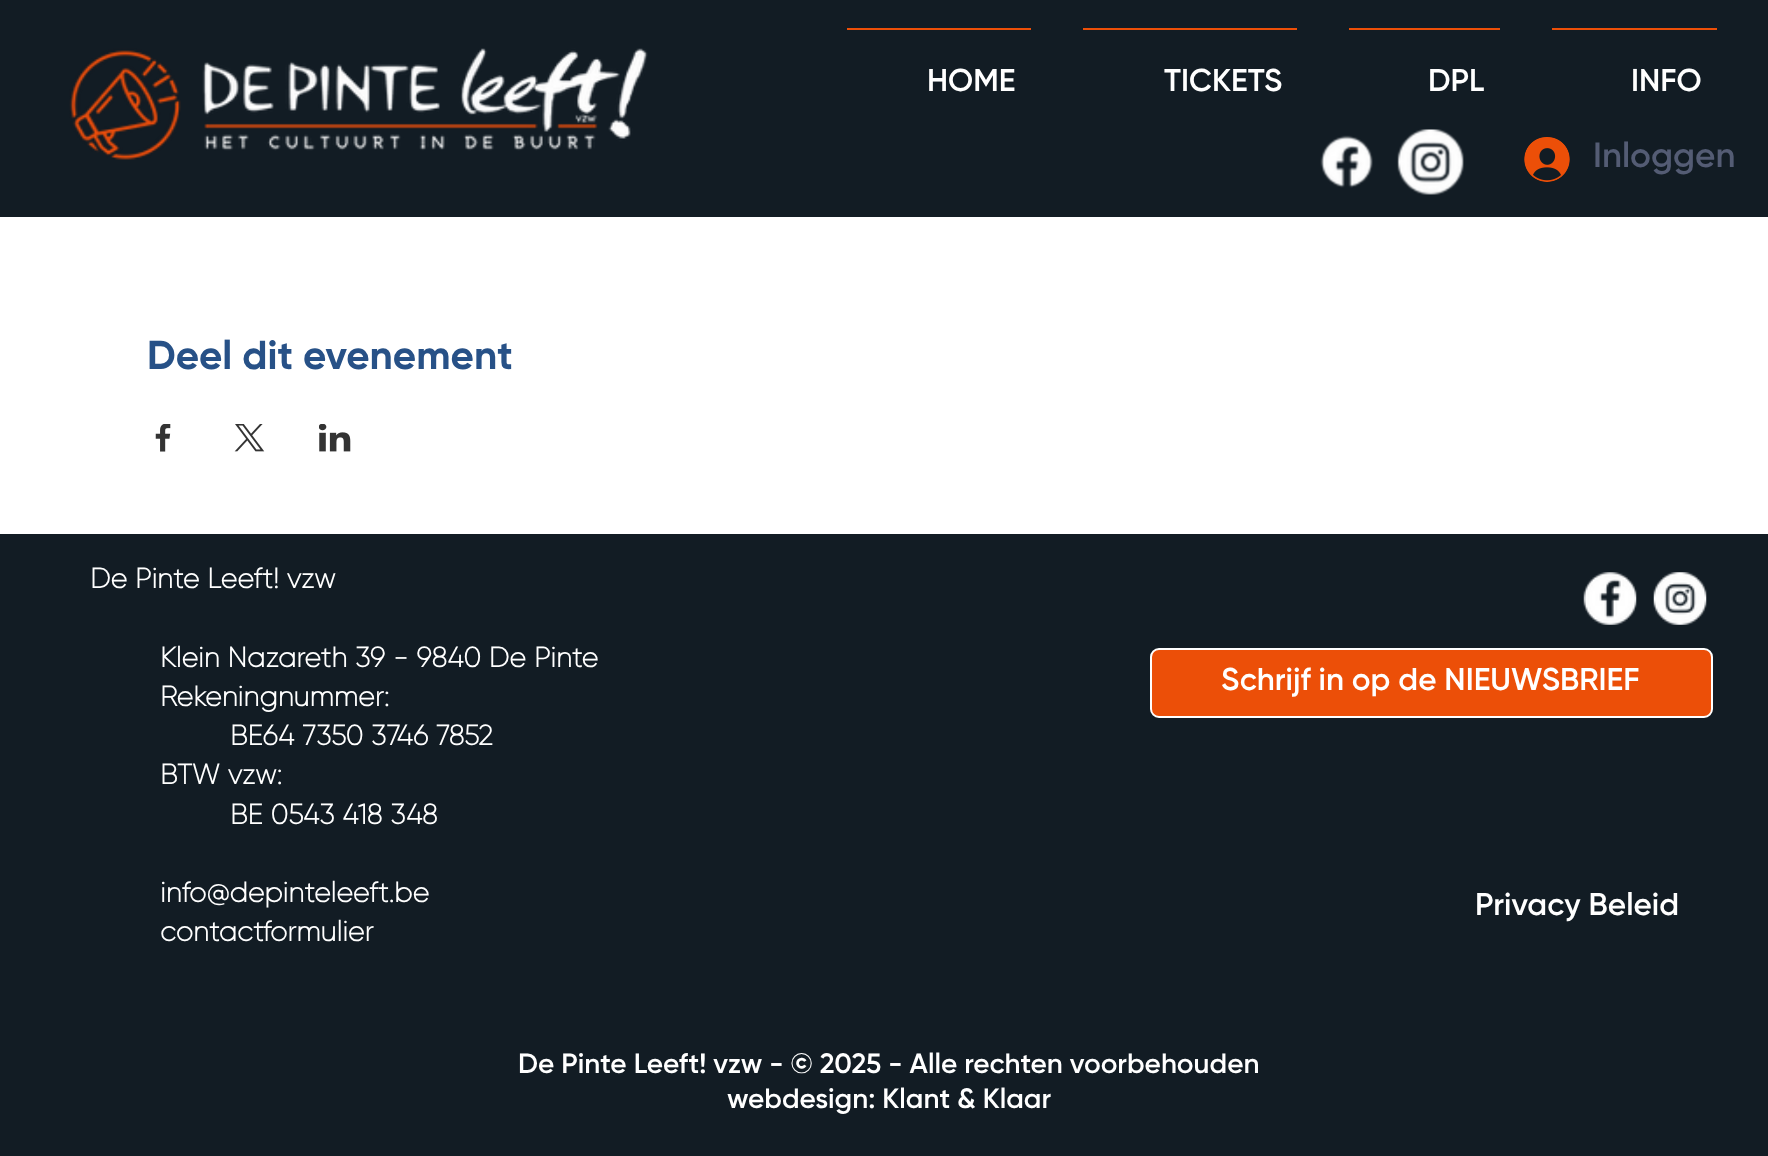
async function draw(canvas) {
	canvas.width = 1768;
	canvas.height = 1156;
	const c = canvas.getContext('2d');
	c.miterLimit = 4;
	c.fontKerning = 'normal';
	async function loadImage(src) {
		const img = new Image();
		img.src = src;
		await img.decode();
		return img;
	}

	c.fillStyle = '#fff';
	c.fillRect(0, 0, 1768, 1156);
	c.fillStyle = '#121c24';
	c.fillRect(0, 0, 1768, 217);
	c.drawImage(await loadImage('img1.png'), 69, 48, 579, 112);
	c.fillStyle = '#ec4f08';
	c.fillRect(847, 28, 184, 2);
	c.font = '600 31.5px Gilroy';
	c.fillStyle = '#fff';
	c.fillText('HOME', 927, 91);
	c.fillStyle = '#ec4f08';
	c.fillRect(1083, 28, 214, 2);
	c.fillStyle = '#fff';
	c.fillText('TICKETS', 1164, 91);
	c.fillStyle = '#ec4f08';
	c.fillRect(1349, 28, 151, 2);
	c.fillStyle = '#fff';
	c.fillText('DPL', 1428, 91);
	c.fillStyle = '#ec4f08';
	c.fillRect(1552, 28, 165, 2);
	c.fillStyle = '#fff';
	c.fillText('INFO', 1631, 91);
	c.drawImage(await loadImage('img2.png'), 1320, 135, 53, 53);
	c.drawImage(await loadImage('img3.png'), 1397, 129, 67, 66);
	c.drawImage(await loadImage('img4.png'), 1524, 137, 46, 45);
	c.font = '600 35px Gilroy';
	c.fillStyle = '#545c74';
	c.fillText('Inloggen', 1593, 167);
	c.font = 'bold 40.25px Gilroy';
	c.fillStyle = '#275187';
	c.fillText('Deel dit evenement', 147, 369);
	c.drawImage(await loadImage('img5.png'), 155, 424, 16, 28);
	c.drawImage(await loadImage('img6.png'), 234, 424, 31, 28);
	c.drawImage(await loadImage('img7.png'), 319, 424, 32, 28);
	c.fillStyle = '#121c24';
	c.fillRect(0, 534, 1768, 622);
	c.font = 'bold 28px "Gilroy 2"';
	c.fillStyle = '#fff';
	for (const [text, x, y] of [
		['De Pinte Leeft! vzw', 90, 588],
		['Klein Nazareth 39 - 9840 De Pinte', 160, 667],
		['Rekeningnummer:', 160, 706],
		['BE64 7350 3746 7852', 230, 745],
		['BTW vzw:', 160, 784],
		['BE 0543 418 348', 230, 824],
		['info@depinteleeft.be', 160, 902],
		['contactformulier', 160, 941],
	]) {
		c.fillText(text, x, y);
	}
	c.drawImage(await loadImage('img8.png'), 1583, 572, 54, 53);
	c.drawImage(await loadImage('img9.png'), 1653, 572, 54, 53);
	c.fillStyle = '#ec4f08';
	c.beginPath();
	c.roundRect(1151, 649, 561, 68, 8);
	c.fill();
	c.strokeStyle = '#fff';
	c.lineWidth = 2;
	c.stroke();
	c.font = '600 31.5px Gilroy';
	c.fillStyle = '#fff';
	c.fillText('Schrijf in op de NIEUWSBRIEF', 1221, 690);
	c.fillText('Privacy Beleid', 1475, 915);
	c.font = '600 28px Gilroy';
	c.fillText('De Pinte Leeft! vzw - © 2025 - Alle rechten voorbehouden', 518, 1073);
	c.fillText('webdesign: Klant & Klaar', 727, 1108);
}

draw(document.querySelector('canvas'));
